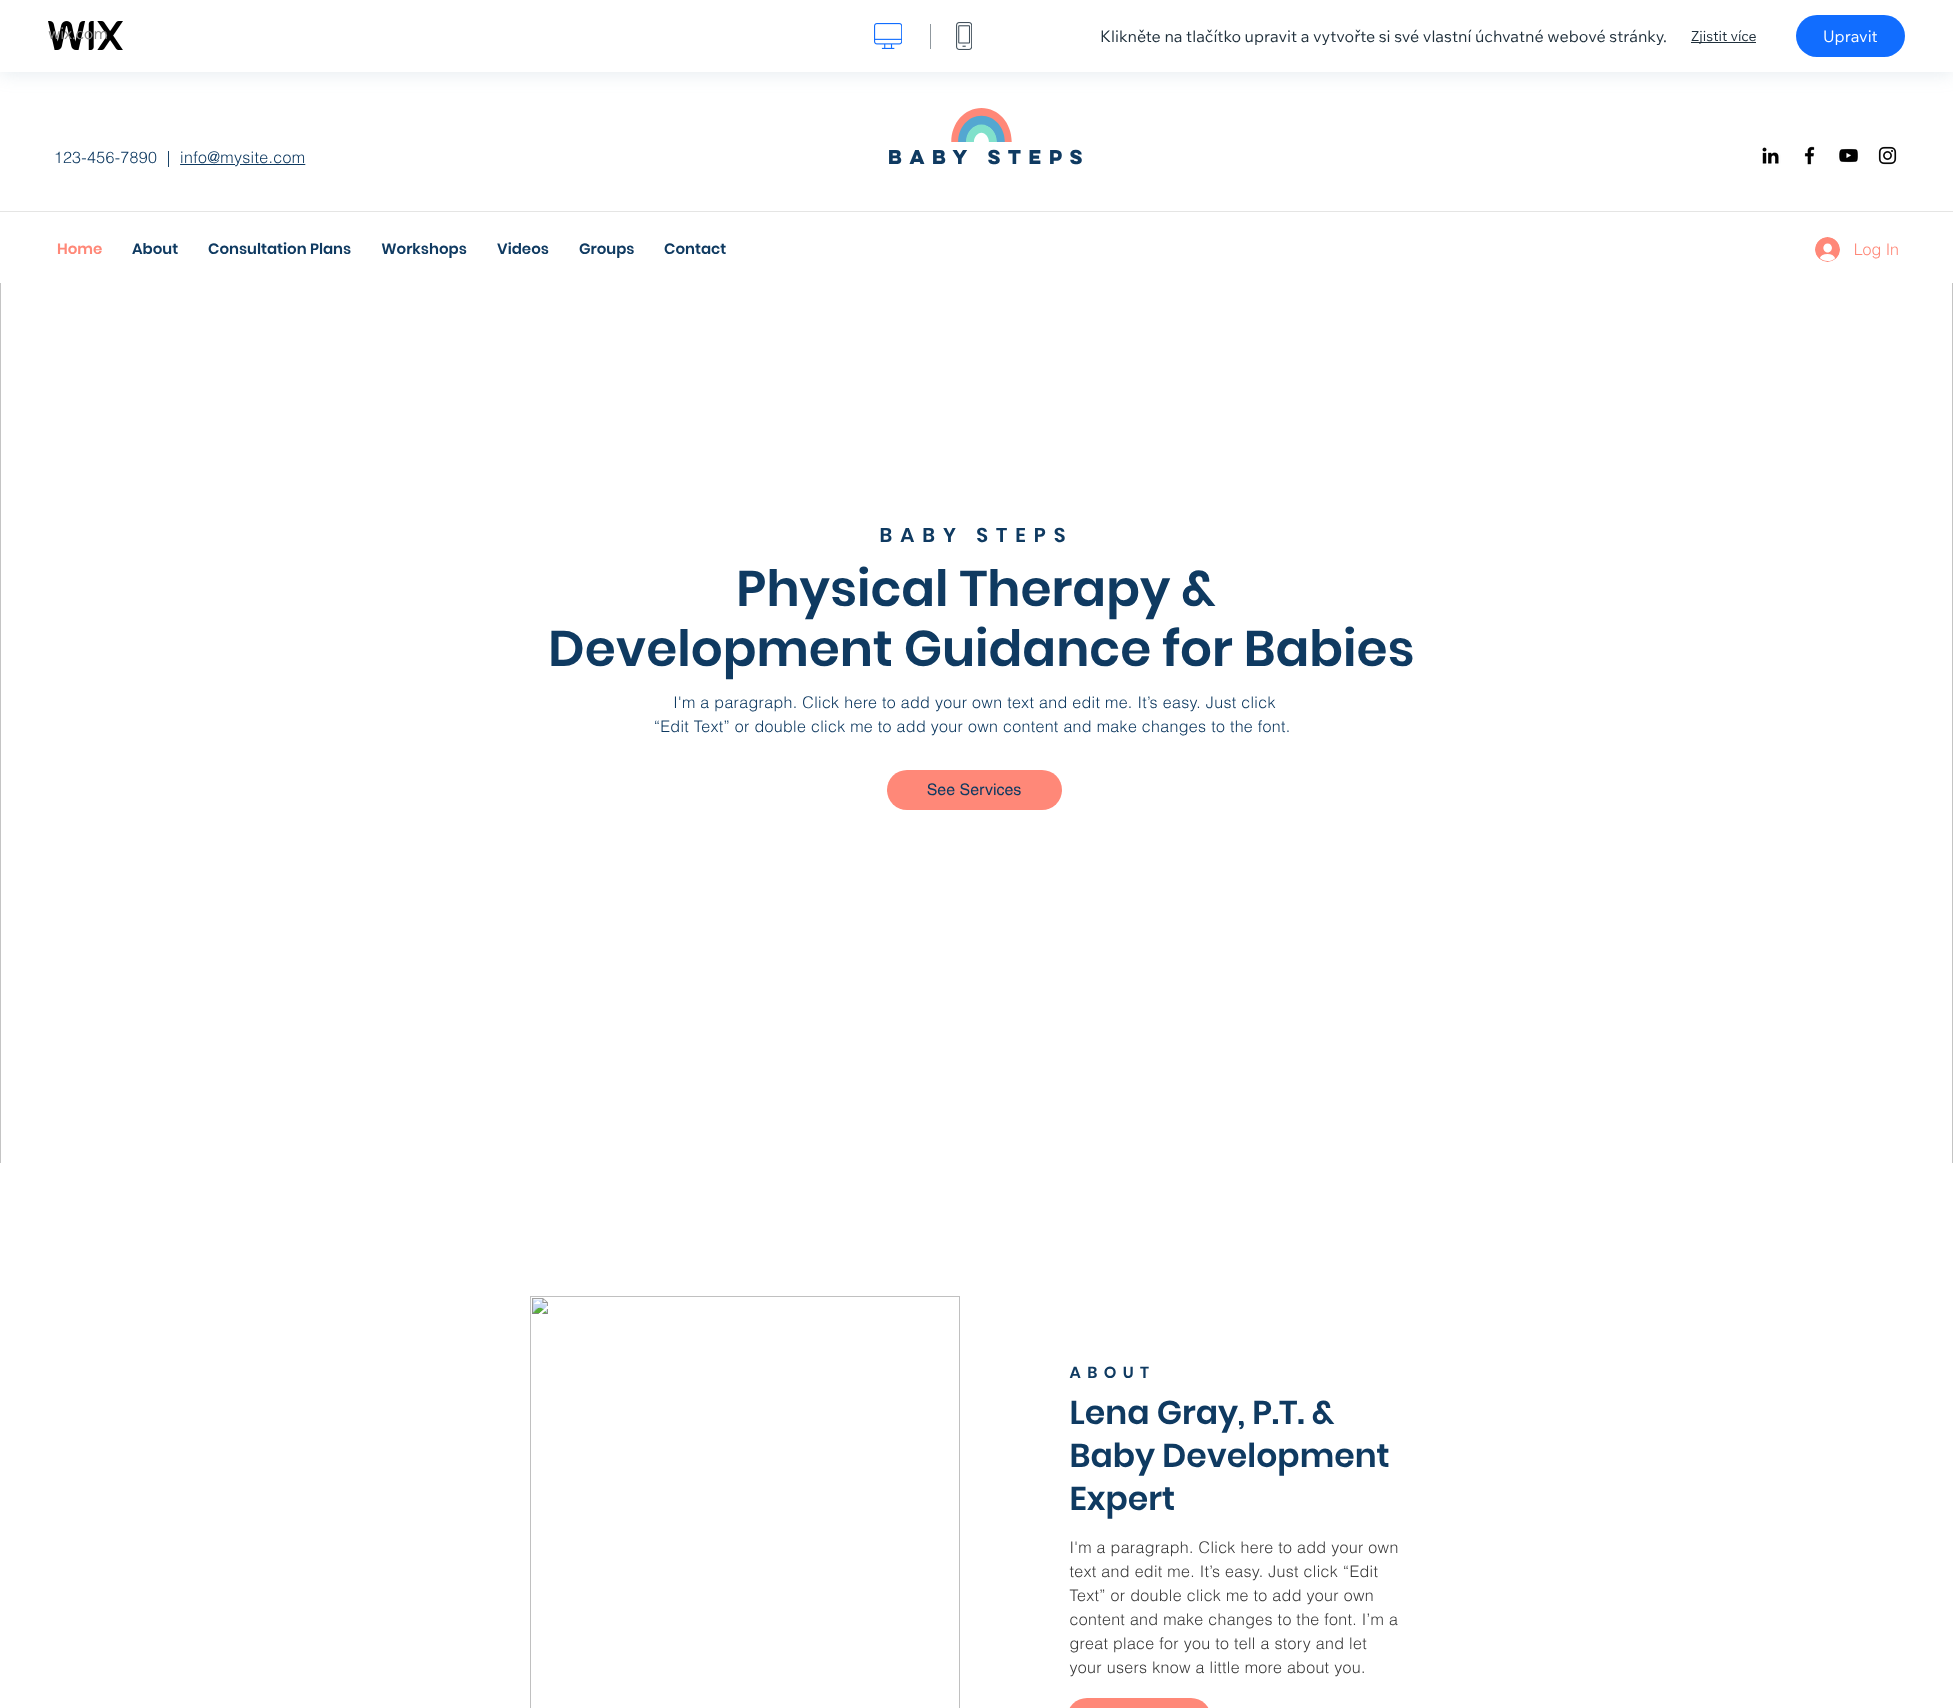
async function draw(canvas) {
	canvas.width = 1953;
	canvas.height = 1708;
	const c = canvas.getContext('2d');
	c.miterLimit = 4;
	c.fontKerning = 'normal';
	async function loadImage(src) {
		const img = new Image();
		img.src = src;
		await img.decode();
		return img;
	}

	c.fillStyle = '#fff';
	c.fillRect(0, 0, 1953, 1708);
	c.drawImage(await loadImage('img4.png'), 0, 72, 1953, 1636);
	c.fillStyle = '#81a2b633';
	c.filter = 'blur(9px)';
	c.beginPath();
	c.rect(0, 2, 1953, 72);
	c.fill();
	c.filter = 'none';
	c.fillStyle = '#fff';
	c.fillRect(0, 0, 1953, 72);
	c.drawImage(await loadImage('img1.png'), 48, 21, 75, 29);
	c.font = '16px Wix Madefor Text';
	c.fillStyle = '#888';
	c.fillText('wix.com', 48, 39);
	c.drawImage(await loadImage('img2.png'), 874, 23, 28, 26);
	c.fillStyle = '#90989e';
	c.fillRect(930, 24, 1, 25);
	c.drawImage(await loadImage('img3.png'), 956, 22, 16, 28);
	c.fillStyle = '#20303c';
	c.fillText('Klikněte na tlačítko upravit a vytvořte si své vlastní úchvatné webové stránky.', 1100, 42);
	c.fillRect(1691, 42, 65, 1);
	c.font = '14px Wix Madefor Text';
	c.fillText('Zjistit více', 1691, 41);
	c.fillStyle = '#116dff';
	c.beginPath();
	c.roundRect(1796, 15, 109, 42, 21);
	c.fill();
	c.font = '16px Wix Madefor Text';
	c.fillStyle = '#fff';
	c.fillText('Upravit', 1823, 42);
}

draw(document.querySelector('canvas'));
